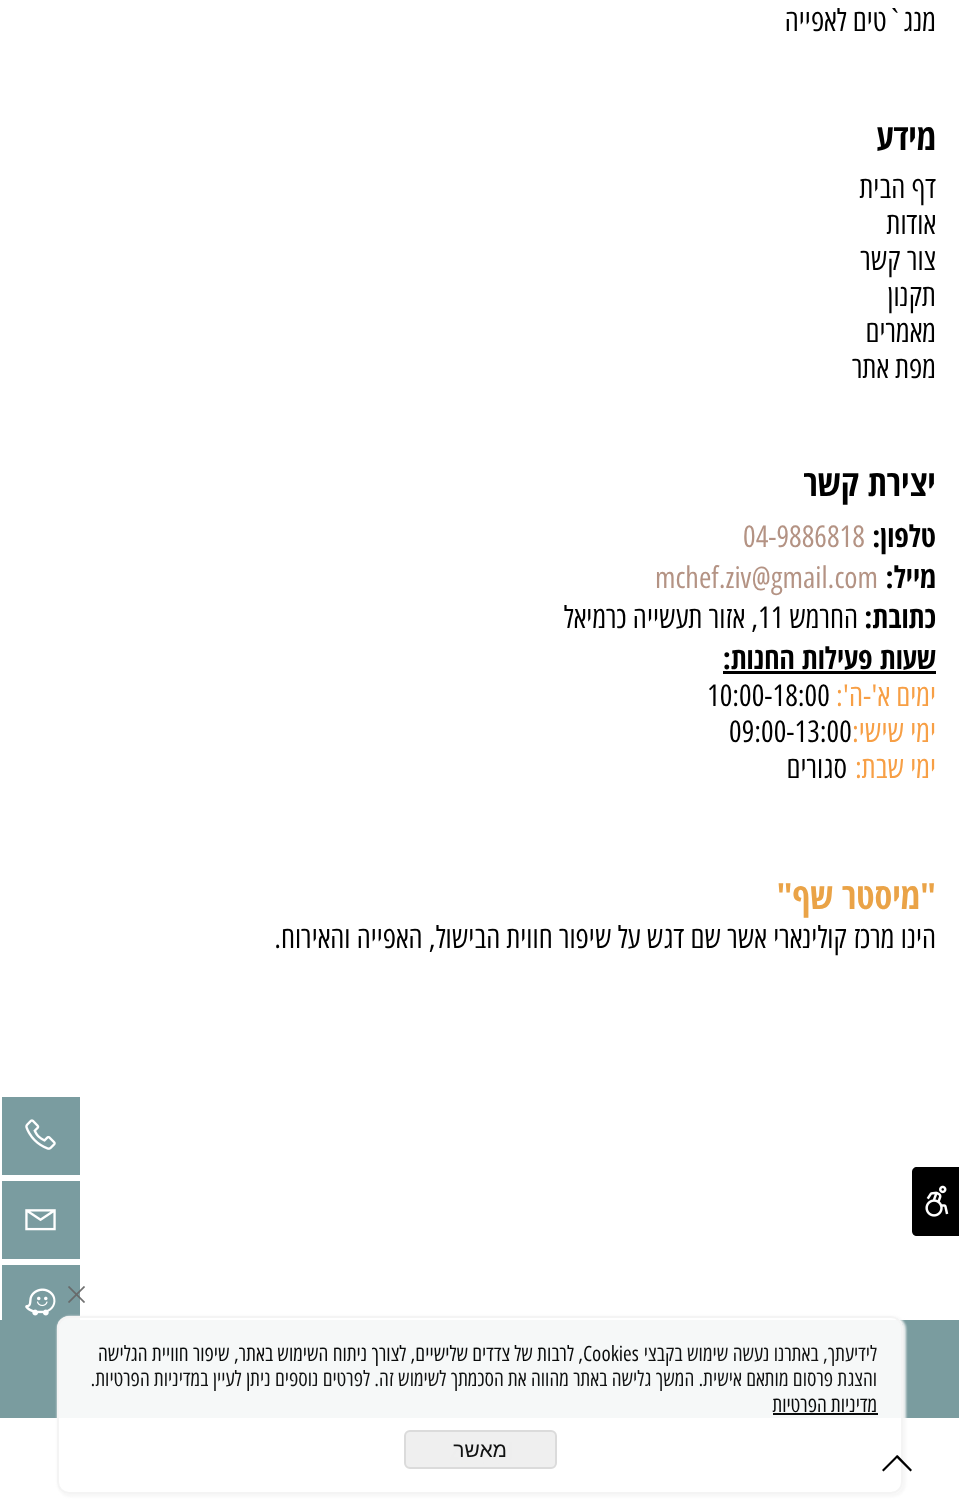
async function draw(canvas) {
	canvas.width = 959;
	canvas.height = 1506;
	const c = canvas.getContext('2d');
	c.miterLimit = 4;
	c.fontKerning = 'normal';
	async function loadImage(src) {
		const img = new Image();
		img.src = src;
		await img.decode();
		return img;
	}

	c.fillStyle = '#fff';
	c.fillRect(0, 0, 959, 1506);
	c.direction = 'rtl';
	c.font = '30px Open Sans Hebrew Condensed';
	c.fillStyle = '#000';
	c.fillText('מנג`טים לאפייה', 936, 31);
	c.font = 'bold 36px Open Sans Hebrew Condensed';
	c.fillText('מידע', 936, 150);
	c.font = '30px Open Sans Hebrew Condensed';
	for (const [text, x, y] of [
		['דף הבית', 936, 198],
		['אודות', 936, 234],
		['צור קשר', 936, 270],
		['תקנון', 936, 306],
		['מאמרים', 936, 342],
		['מפת אתר', 936, 378],
	]) {
		c.fillText(text, x, y);
	}
	c.font = 'bold 36px Open Sans Hebrew Condensed';
	c.fillText('יצירת קשר', 936, 496);
	c.font = 'bold 30px Open Sans Hebrew Condensed';
	c.fillText('טלפון:', 936, 547);
	c.direction = 'ltr';
	c.font = '30px Open Sans Hebrew Condensed';
	c.fillStyle = '#b49384';
	c.fillText('04-9886818', 743, 547);
	c.direction = 'rtl';
	c.font = 'bold 30px Open Sans Hebrew Condensed';
	c.fillStyle = '#000';
	c.fillText('מייל:', 936, 588);
	c.direction = 'ltr';
	c.font = '30px Open Sans Hebrew Condensed';
	c.fillStyle = '#b49384';
	c.fillText('mchef.ziv@gmail.com', 655, 588);
	c.direction = 'rtl';
	c.font = 'bold 30px Open Sans Hebrew Condensed';
	c.fillStyle = '#000';
	c.fillText('כתובת:', 936, 628);
	c.font = '30px Open Sans Hebrew Condensed';
	c.fillText('החרמש', 858, 628);
	c.direction = 'ltr';
	c.fillText('11', 758, 628);
	c.direction = 'rtl';
	c.fillText(', אזור תעשייה כרמיאל', 758, 628);
	c.font = 'bold 30px Open Sans Hebrew Condensed';
	c.fillText('שעות פעילות החנות:', 936, 669);
	c.fillRect(723, 671, 213, 3);
	c.font = '30px Open Sans Hebrew Condensed';
	c.fillStyle = '#f79f45';
	c.fillText('ימים א\'-ה\':', 936, 706);
	c.direction = 'ltr';
	c.fillStyle = '#000';
	c.fillText('10:00-18:00', 707, 706);
	c.direction = 'rtl';
	c.fillStyle = '#f79f45';
	c.fillText('ימי שישי:', 936, 742);
	c.direction = 'ltr';
	c.fillStyle = '#000';
	c.fillText('09:00-13:00', 729, 742);
	c.direction = 'rtl';
	c.fillStyle = '#f79f45';
	c.fillText('ימי שבת:', 936, 778);
	c.fillStyle = '#000';
	c.fillText('סגורים', 847, 778);
	c.font = 'bold 36px Open Sans Hebrew Condensed';
	c.fillStyle = '#eaa347';
	c.fillText('"מיסטר שף"', 936, 909);
	c.font = '30px Open Sans Hebrew Condensed';
	c.fillStyle = '#000';
	c.fillText('הינו מרכז קולינארי אשר שם דגש על שיפור חווית הבישול, האפייה והאירוח.', 936, 948);
	c.fillStyle = '#7a9c9f';
	c.fillRect(0, 1320, 959, 98);
	c.fillStyle = '#000';
	c.beginPath();
	c.moveTo(917, 1167);
	c.lineTo(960, 1167);
	c.lineTo(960, 1236);
	c.lineTo(917, 1236);
	c.bezierCurveTo(914, 1236, 912, 1234, 912, 1231);
	c.lineTo(912, 1172);
	c.bezierCurveTo(912, 1169, 914, 1167, 917, 1167);
	c.closePath();
	c.fill();
	c.drawImage(await loadImage('img1.png'), 925, 1185, 24, 32);
	c.fillStyle = '#7a9ca0';
	c.fillRect(2, 1097, 78, 78);
	c.drawImage(await loadImage('img2.png'), 25, 1119, 31, 31);
	c.fillRect(2, 1181, 78, 78);
	c.drawImage(await loadImage('img3.png'), 25, 1209, 31, 22);
	c.fillRect(2, 1265, 78, 55);
	c.drawImage(await loadImage('img4.png'), 25, 1288, 31, 28);
	c.drawImage(await loadImage('img6.png'), 449, 1441, 63, 24);
	c.save();
	c.beginPath();
	c.moveTo(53, 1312);
	c.lineTo(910, 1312);
	c.lineTo(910, 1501);
	c.lineTo(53, 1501);
	c.closePath();
	c.moveTo(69, 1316);
	c.lineTo(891, 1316);
	c.bezierCurveTo(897.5, 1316, 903, 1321.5, 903, 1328);
	c.lineTo(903, 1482);
	c.bezierCurveTo(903, 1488.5, 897.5, 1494, 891, 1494);
	c.lineTo(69, 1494);
	c.bezierCurveTo(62.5, 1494, 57, 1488.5, 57, 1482);
	c.lineTo(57, 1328);
	c.bezierCurveTo(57, 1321.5, 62.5, 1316, 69, 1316);
	c.closePath();
	c.clip('evenodd');
	c.fillStyle = '#f6f6f6ed';
	c.filter = 'blur(1px)';
	c.beginPath();
	c.roundRect(57, 1316, 849, 181, 14);
	c.fill();
	c.filter = 'none';
	c.restore();
	c.fillStyle = '#ffffffed';
	c.beginPath();
	c.roundRect(57, 1316, 846, 178, 12);
	c.fill();
	c.beginPath();
	c.roundRect(58, 1317, 844, 176, 11);
	c.strokeStyle = '#f3f3f3ed';
	c.lineWidth = 2;
	c.stroke();
	c.drawImage(await loadImage('img5.png'), 68, 1286, 17, 17);
	c.font = '21px Open Sans Hebrew Condensed';
	c.fillStyle = '#111212';
	c.fillText('לידיעתך, באתרנו נעשה שימוש בקבצי', 877, 1361);
	c.direction = 'ltr';
	c.fillStyle = '#090b0b';
	c.fillText('Cookies', 583, 1361);
	c.direction = 'rtl';
	c.fillText(', לרבות של צדדים שלישיים, לצורך ניתוח השימוש באתר, שיפור חוויית הגלישה', 583, 1361);
	c.fillStyle = '#111212';
	c.fillText('והצגת פרסום מותאם אישית. המשך גלישה באתר מהווה את הסכמתך לשימוש זה. לפרטים נוספים ניתן לעיין במדיניות הפרטיות.', 877, 1386);
	c.fillStyle = '#090b0b';
	c.fillText('מדיניות הפרטיות', 877, 1412);
	c.fillRect(773, 1413, 105, 2);
	c.fillStyle = '#eeeeeeed';
	c.beginPath();
	c.roundRect(405, 1431, 151, 37, 5);
	c.fill();
	c.strokeStyle = '#dbdbdb';
	c.stroke();
	c.font = '21px Liberation Sans';
	c.fillStyle = '#111212';
	c.fillText('מאשר', 507, 1457);
	c.fillStyle = '#000';
	c.beginPath();
	c.moveTo(897, 1455);
	c.lineTo(882, 1470);
	c.lineTo(883.5, 1471.5);
	c.lineTo(897, 1458);
	c.lineTo(910.5, 1471.5);
	c.lineTo(912, 1470);
	c.lineTo(898, 1455.5);
	c.closePath();
	c.fill();
}

draw(document.querySelector('canvas'));
